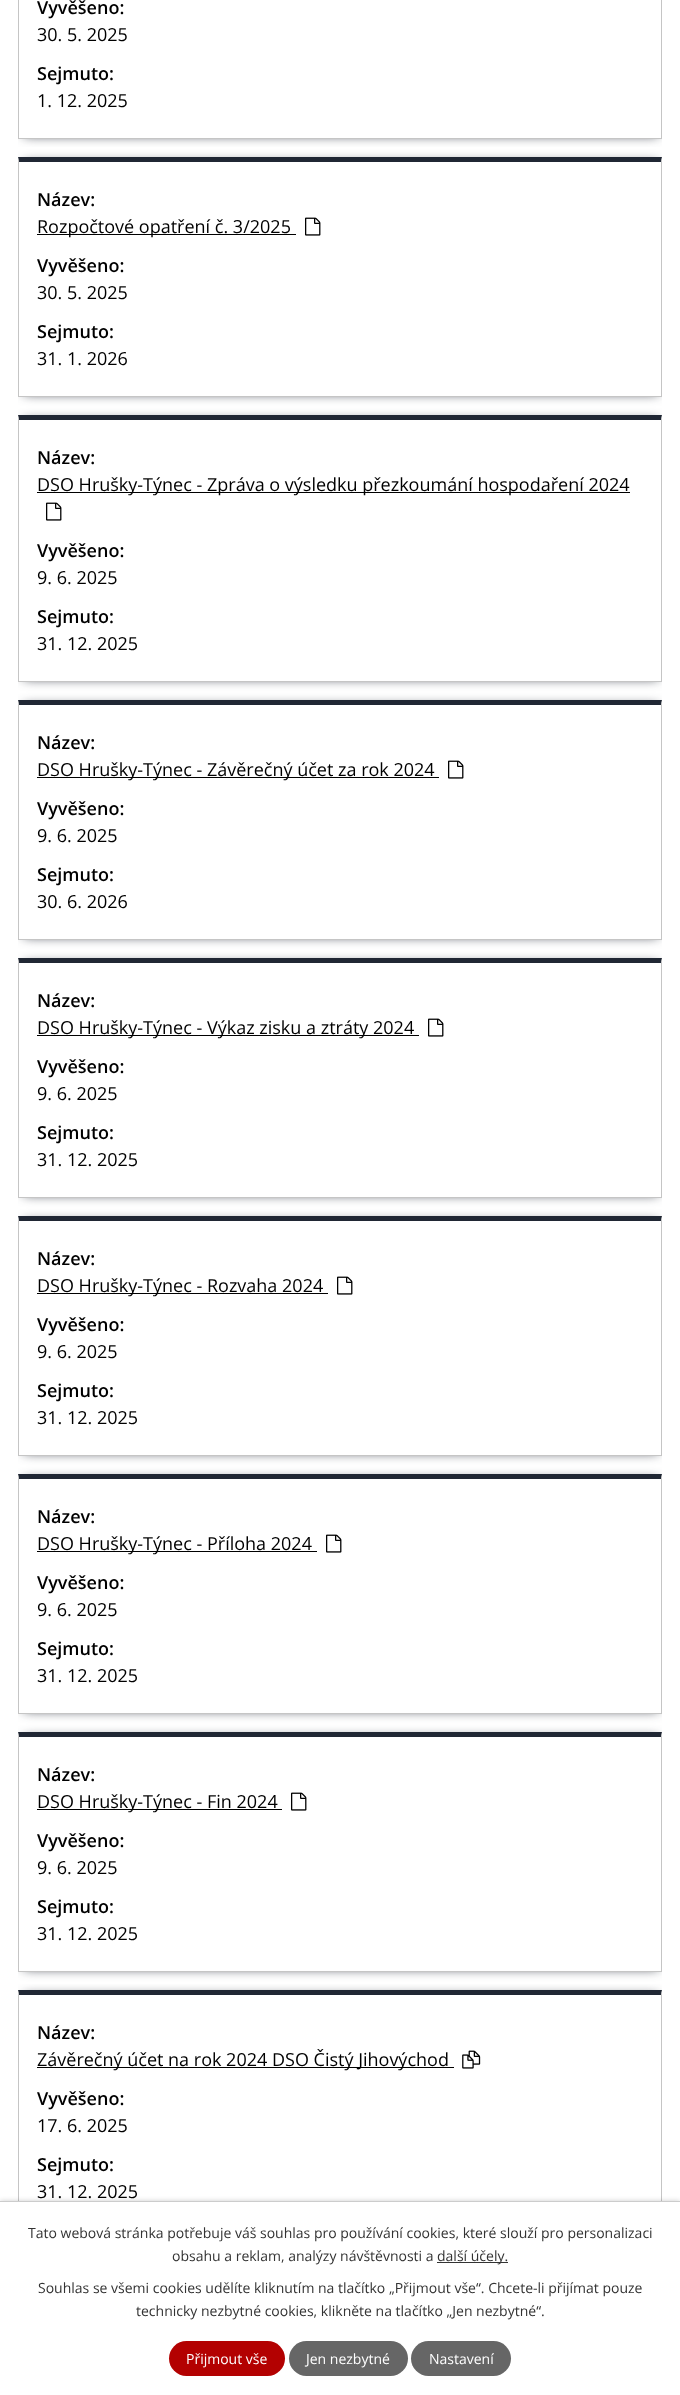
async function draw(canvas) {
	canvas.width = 680;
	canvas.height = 2395;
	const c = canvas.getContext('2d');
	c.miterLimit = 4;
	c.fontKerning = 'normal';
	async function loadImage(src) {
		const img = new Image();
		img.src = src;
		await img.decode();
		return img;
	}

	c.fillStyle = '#fff';
	c.fillRect(0, 0, 680, 2395);
	c.save();
	c.beginPath();
	c.rect(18, 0, 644, 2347);
	c.clip();
	c.beginPath();
	c.rect(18, 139, 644, 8);
	c.clip();
	c.fillStyle = '#202734';
	c.filter = 'blur(6px)';
	c.beginPath();
	c.rect(24, -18, 634, 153);
	c.fill();
	c.filter = 'none';
	c.restore();
	c.fillStyle = '#c5c5c5';
	c.beginPath();
	c.moveTo(662, -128);
	c.lineTo(662, 139);
	c.lineTo(661, 138);
	c.lineTo(661, -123);
	c.closePath();
	c.fill();
	c.fillRect(18, 138, 644, 1);
	c.beginPath();
	c.moveTo(18, 139);
	c.lineTo(18, -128);
	c.lineTo(19, -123);
	c.lineTo(19, 138);
	c.closePath();
	c.fill();
	c.font = '600 18px Open Sans';
	c.fillStyle = '#000';
	c.fillText('Vyvěšeno:', 37, 14);
	c.font = '18px Open Sans';
	c.fillText('30. 5. 2025', 37, 41);
	c.font = '600 18px Open Sans';
	c.fillText('Sejmuto:', 37, 80);
	c.font = '18px Open Sans';
	c.fillText('1. 12. 2025', 37, 107);
	c.save();
	c.beginPath();
	c.rect(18, 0, 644, 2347);
	c.clip();
	c.beginPath();
	c.moveTo(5, 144);
	c.lineTo(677, 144);
	c.lineTo(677, 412);
	c.lineTo(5, 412);
	c.closePath();
	c.moveTo(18, 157);
	c.lineTo(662, 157);
	c.lineTo(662, 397);
	c.lineTo(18, 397);
	c.closePath();
	c.clip('evenodd');
	c.fillStyle = '#202734';
	c.filter = 'blur(6px)';
	c.beginPath();
	c.rect(24, 163, 634, 230);
	c.fill();
	c.filter = 'none';
	c.restore();
	c.fillStyle = '#202734';
	c.beginPath();
	c.moveTo(18, 157);
	c.lineTo(662, 157);
	c.lineTo(661, 162);
	c.lineTo(19, 162);
	c.closePath();
	c.fill();
	c.fillStyle = '#c5c5c5';
	c.beginPath();
	c.moveTo(662, 157);
	c.lineTo(662, 397);
	c.lineTo(661, 396);
	c.lineTo(661, 162);
	c.closePath();
	c.fill();
	c.fillRect(18, 396, 644, 1);
	c.beginPath();
	c.moveTo(18, 397);
	c.lineTo(18, 157);
	c.lineTo(19, 162);
	c.lineTo(19, 396);
	c.closePath();
	c.fill();
	c.font = '600 18px Open Sans';
	c.fillStyle = '#000';
	c.fillText('Název:', 37, 206);
	c.fillRect(37, 234, 259, 1);
	c.font = '18px Open Sans';
	c.fillText('Rozpočtové opatření č. 3/2025', 37, 233);
	c.drawImage(await loadImage('img1.png'), 305, 217, 16, 19);
	c.font = '600 18px Open Sans';
	c.fillText('Vyvěšeno:', 37, 272);
	c.font = '18px Open Sans';
	c.fillText('30. 5. 2025', 37, 299);
	c.font = '600 18px Open Sans';
	c.fillText('Sejmuto:', 37, 338);
	c.font = '18px Open Sans';
	c.fillText('31. 1. 2026', 37, 365);
	c.save();
	c.beginPath();
	c.rect(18, 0, 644, 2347);
	c.clip();
	c.beginPath();
	c.moveTo(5, 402);
	c.lineTo(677, 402);
	c.lineTo(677, 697);
	c.lineTo(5, 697);
	c.closePath();
	c.moveTo(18, 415);
	c.lineTo(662, 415);
	c.lineTo(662, 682);
	c.lineTo(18, 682);
	c.closePath();
	c.clip('evenodd');
	c.fillStyle = '#202734';
	c.filter = 'blur(6px)';
	c.beginPath();
	c.rect(24, 421, 634, 257);
	c.fill();
	c.filter = 'none';
	c.restore();
	c.fillStyle = '#202734';
	c.beginPath();
	c.moveTo(18, 415);
	c.lineTo(662, 415);
	c.lineTo(661, 420);
	c.lineTo(19, 420);
	c.closePath();
	c.fill();
	c.fillStyle = '#c5c5c5';
	c.beginPath();
	c.moveTo(662, 415);
	c.lineTo(662, 682);
	c.lineTo(661, 681);
	c.lineTo(661, 420);
	c.closePath();
	c.fill();
	c.fillRect(18, 681, 644, 1);
	c.beginPath();
	c.moveTo(18, 682);
	c.lineTo(18, 415);
	c.lineTo(19, 420);
	c.lineTo(19, 681);
	c.closePath();
	c.fill();
	c.font = '600 18px Open Sans';
	c.fillStyle = '#000';
	c.fillText('Název:', 37, 464);
	c.fillRect(37, 492, 593, 1);
	c.font = '18px Open Sans';
	c.fillText('DSO Hrušky-Týnec - Zpráva o výsledku přezkoumání hospodaření 2024', 37, 491);
	c.drawImage(await loadImage('img1.png'), 46, 502, 16, 19);
	c.font = '600 18px Open Sans';
	c.fillText('Vyvěšeno:', 37, 557);
	c.font = '18px Open Sans';
	c.fillText('9. 6. 2025', 37, 584);
	c.font = '600 18px Open Sans';
	c.fillText('Sejmuto:', 37, 623);
	c.font = '18px Open Sans';
	c.fillText('31. 12. 2025', 37, 650);
	c.save();
	c.beginPath();
	c.rect(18, 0, 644, 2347);
	c.clip();
	c.beginPath();
	c.moveTo(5, 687);
	c.lineTo(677, 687);
	c.lineTo(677, 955);
	c.lineTo(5, 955);
	c.closePath();
	c.moveTo(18, 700);
	c.lineTo(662, 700);
	c.lineTo(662, 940);
	c.lineTo(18, 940);
	c.closePath();
	c.clip('evenodd');
	c.fillStyle = '#202734';
	c.filter = 'blur(6px)';
	c.beginPath();
	c.rect(24, 706, 634, 230);
	c.fill();
	c.filter = 'none';
	c.restore();
	c.fillStyle = '#202734';
	c.beginPath();
	c.moveTo(18, 700);
	c.lineTo(662, 700);
	c.lineTo(661, 705);
	c.lineTo(19, 705);
	c.closePath();
	c.fill();
	c.fillStyle = '#c5c5c5';
	c.beginPath();
	c.moveTo(662, 700);
	c.lineTo(662, 940);
	c.lineTo(661, 939);
	c.lineTo(661, 705);
	c.closePath();
	c.fill();
	c.fillRect(18, 939, 644, 1);
	c.beginPath();
	c.moveTo(18, 940);
	c.lineTo(18, 700);
	c.lineTo(19, 705);
	c.lineTo(19, 939);
	c.closePath();
	c.fill();
	c.font = '600 18px Open Sans';
	c.fillStyle = '#000';
	c.fillText('Název:', 37, 749);
	c.fillRect(37, 777, 402, 1);
	c.font = '18px Open Sans';
	c.fillText('DSO Hrušky-Týnec - Závěrečný účet za rok 2024', 37, 776);
	c.drawImage(await loadImage('img1.png'), 448, 760, 16, 19);
	c.font = '600 18px Open Sans';
	c.fillText('Vyvěšeno:', 37, 815);
	c.font = '18px Open Sans';
	c.fillText('9. 6. 2025', 37, 842);
	c.font = '600 18px Open Sans';
	c.fillText('Sejmuto:', 37, 881);
	c.font = '18px Open Sans';
	c.fillText('30. 6. 2026', 37, 908);
	c.save();
	c.beginPath();
	c.rect(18, 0, 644, 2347);
	c.clip();
	c.beginPath();
	c.moveTo(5, 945);
	c.lineTo(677, 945);
	c.lineTo(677, 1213);
	c.lineTo(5, 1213);
	c.closePath();
	c.moveTo(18, 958);
	c.lineTo(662, 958);
	c.lineTo(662, 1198);
	c.lineTo(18, 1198);
	c.closePath();
	c.clip('evenodd');
	c.fillStyle = '#202734';
	c.filter = 'blur(6px)';
	c.beginPath();
	c.rect(24, 964, 634, 230);
	c.fill();
	c.filter = 'none';
	c.restore();
	c.fillStyle = '#202734';
	c.beginPath();
	c.moveTo(18, 958);
	c.lineTo(662, 958);
	c.lineTo(661, 963);
	c.lineTo(19, 963);
	c.closePath();
	c.fill();
	c.fillStyle = '#c5c5c5';
	c.beginPath();
	c.moveTo(662, 958);
	c.lineTo(662, 1198);
	c.lineTo(661, 1197);
	c.lineTo(661, 963);
	c.closePath();
	c.fill();
	c.fillRect(18, 1197, 644, 1);
	c.beginPath();
	c.moveTo(18, 1198);
	c.lineTo(18, 958);
	c.lineTo(19, 963);
	c.lineTo(19, 1197);
	c.closePath();
	c.fill();
	c.font = '600 18px Open Sans';
	c.fillStyle = '#000';
	c.fillText('Název:', 37, 1007);
	c.fillRect(37, 1035, 382, 1);
	c.font = '18px Open Sans';
	c.fillText('DSO Hrušky-Týnec - Výkaz zisku a ztráty 2024', 37, 1034);
	c.drawImage(await loadImage('img1.png'), 428, 1018, 16, 19);
	c.font = '600 18px Open Sans';
	c.fillText('Vyvěšeno:', 37, 1073);
	c.font = '18px Open Sans';
	c.fillText('9. 6. 2025', 37, 1100);
	c.font = '600 18px Open Sans';
	c.fillText('Sejmuto:', 37, 1139);
	c.font = '18px Open Sans';
	c.fillText('31. 12. 2025', 37, 1166);
	c.save();
	c.beginPath();
	c.rect(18, 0, 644, 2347);
	c.clip();
	c.beginPath();
	c.moveTo(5, 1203);
	c.lineTo(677, 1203);
	c.lineTo(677, 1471);
	c.lineTo(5, 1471);
	c.closePath();
	c.moveTo(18, 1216);
	c.lineTo(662, 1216);
	c.lineTo(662, 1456);
	c.lineTo(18, 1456);
	c.closePath();
	c.clip('evenodd');
	c.fillStyle = '#202734';
	c.filter = 'blur(6px)';
	c.beginPath();
	c.rect(24, 1222, 634, 230);
	c.fill();
	c.filter = 'none';
	c.restore();
	c.fillStyle = '#202734';
	c.beginPath();
	c.moveTo(18, 1216);
	c.lineTo(662, 1216);
	c.lineTo(661, 1221);
	c.lineTo(19, 1221);
	c.closePath();
	c.fill();
	c.fillStyle = '#c5c5c5';
	c.beginPath();
	c.moveTo(662, 1216);
	c.lineTo(662, 1456);
	c.lineTo(661, 1455);
	c.lineTo(661, 1221);
	c.closePath();
	c.fill();
	c.fillRect(18, 1455, 644, 1);
	c.beginPath();
	c.moveTo(18, 1456);
	c.lineTo(18, 1216);
	c.lineTo(19, 1221);
	c.lineTo(19, 1455);
	c.closePath();
	c.fill();
	c.font = '600 18px Open Sans';
	c.fillStyle = '#000';
	c.fillText('Název:', 37, 1265);
	c.fillRect(37, 1293, 291, 1);
	c.font = '18px Open Sans';
	c.fillText('DSO Hrušky-Týnec - Rozvaha 2024', 37, 1292);
	c.drawImage(await loadImage('img1.png'), 337, 1276, 16, 19);
	c.font = '600 18px Open Sans';
	c.fillText('Vyvěšeno:', 37, 1331);
	c.font = '18px Open Sans';
	c.fillText('9. 6. 2025', 37, 1358);
	c.font = '600 18px Open Sans';
	c.fillText('Sejmuto:', 37, 1397);
	c.font = '18px Open Sans';
	c.fillText('31. 12. 2025', 37, 1424);
	c.save();
	c.beginPath();
	c.rect(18, 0, 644, 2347);
	c.clip();
	c.beginPath();
	c.moveTo(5, 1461);
	c.lineTo(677, 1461);
	c.lineTo(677, 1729);
	c.lineTo(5, 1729);
	c.closePath();
	c.moveTo(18, 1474);
	c.lineTo(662, 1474);
	c.lineTo(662, 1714);
	c.lineTo(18, 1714);
	c.closePath();
	c.clip('evenodd');
	c.fillStyle = '#202734';
	c.filter = 'blur(6px)';
	c.beginPath();
	c.rect(24, 1480, 634, 230);
	c.fill();
	c.filter = 'none';
	c.restore();
	c.fillStyle = '#202734';
	c.beginPath();
	c.moveTo(18, 1474);
	c.lineTo(662, 1474);
	c.lineTo(661, 1479);
	c.lineTo(19, 1479);
	c.closePath();
	c.fill();
	c.fillStyle = '#c5c5c5';
	c.beginPath();
	c.moveTo(662, 1474);
	c.lineTo(662, 1714);
	c.lineTo(661, 1713);
	c.lineTo(661, 1479);
	c.closePath();
	c.fill();
	c.fillRect(18, 1713, 644, 1);
	c.beginPath();
	c.moveTo(18, 1714);
	c.lineTo(18, 1474);
	c.lineTo(19, 1479);
	c.lineTo(19, 1713);
	c.closePath();
	c.fill();
	c.font = '600 18px Open Sans';
	c.fillStyle = '#000';
	c.fillText('Název:', 37, 1523);
	c.fillRect(37, 1551, 280, 1);
	c.font = '18px Open Sans';
	c.fillText('DSO Hrušky-Týnec - Příloha 2024', 37, 1550);
	c.drawImage(await loadImage('img1.png'), 326, 1534, 16, 19);
	c.font = '600 18px Open Sans';
	c.fillText('Vyvěšeno:', 37, 1589);
	c.font = '18px Open Sans';
	c.fillText('9. 6. 2025', 37, 1616);
	c.font = '600 18px Open Sans';
	c.fillText('Sejmuto:', 37, 1655);
	c.font = '18px Open Sans';
	c.fillText('31. 12. 2025', 37, 1682);
	c.save();
	c.beginPath();
	c.rect(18, 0, 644, 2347);
	c.clip();
	c.beginPath();
	c.moveTo(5, 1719);
	c.lineTo(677, 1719);
	c.lineTo(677, 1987);
	c.lineTo(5, 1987);
	c.closePath();
	c.moveTo(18, 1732);
	c.lineTo(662, 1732);
	c.lineTo(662, 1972);
	c.lineTo(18, 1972);
	c.closePath();
	c.clip('evenodd');
	c.fillStyle = '#202734';
	c.filter = 'blur(6px)';
	c.beginPath();
	c.rect(24, 1738, 634, 230);
	c.fill();
	c.filter = 'none';
	c.restore();
	c.fillStyle = '#202734';
	c.beginPath();
	c.moveTo(18, 1732);
	c.lineTo(662, 1732);
	c.lineTo(661, 1737);
	c.lineTo(19, 1737);
	c.closePath();
	c.fill();
	c.fillStyle = '#c5c5c5';
	c.beginPath();
	c.moveTo(662, 1732);
	c.lineTo(662, 1972);
	c.lineTo(661, 1971);
	c.lineTo(661, 1737);
	c.closePath();
	c.fill();
	c.fillRect(18, 1971, 644, 1);
	c.beginPath();
	c.moveTo(18, 1972);
	c.lineTo(18, 1732);
	c.lineTo(19, 1737);
	c.lineTo(19, 1971);
	c.closePath();
	c.fill();
	c.font = '600 18px Open Sans';
	c.fillStyle = '#000';
	c.fillText('Název:', 37, 1781);
	c.fillRect(37, 1809, 245, 1);
	c.font = '18px Open Sans';
	c.fillText('DSO Hrušky-Týnec - Fin 2024', 37, 1808);
	c.drawImage(await loadImage('img1.png'), 291, 1792, 16, 19);
	c.font = '600 18px Open Sans';
	c.fillText('Vyvěšeno:', 37, 1847);
	c.font = '18px Open Sans';
	c.fillText('9. 6. 2025', 37, 1874);
	c.font = '600 18px Open Sans';
	c.fillText('Sejmuto:', 37, 1913);
	c.font = '18px Open Sans';
	c.fillText('31. 12. 2025', 37, 1940);
	c.save();
	c.beginPath();
	c.rect(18, 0, 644, 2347);
	c.clip();
	c.beginPath();
	c.rect(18, 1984, 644, 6);
	c.clip();
	c.fillStyle = '#202734';
	c.filter = 'blur(6px)';
	c.beginPath();
	c.rect(24, 1996, 634, 230);
	c.fill();
	c.filter = 'none';
	c.restore();
	c.fillStyle = '#202734';
	c.beginPath();
	c.moveTo(18, 1990);
	c.lineTo(662, 1990);
	c.lineTo(661, 1995);
	c.lineTo(19, 1995);
	c.closePath();
	c.fill();
	c.fillStyle = '#c5c5c5';
	c.beginPath();
	c.moveTo(662, 1990);
	c.lineTo(662, 2230);
	c.lineTo(661, 2229);
	c.lineTo(661, 1995);
	c.closePath();
	c.fill();
	c.beginPath();
	c.moveTo(18, 2230);
	c.lineTo(18, 1990);
	c.lineTo(19, 1995);
	c.lineTo(19, 2229);
	c.closePath();
	c.fill();
	c.font = '600 18px Open Sans';
	c.fillStyle = '#000';
	c.fillText('Název:', 37, 2039);
	c.fillRect(37, 2067, 417, 1);
	c.font = '18px Open Sans';
	c.fillText('Závěrečný účet na rok 2024 DSO Čistý Jihovýchod', 37, 2066);
	c.drawImage(await loadImage('img2.png'), 462, 2050, 19, 19);
	c.font = '600 18px Open Sans';
	c.fillText('Vyvěšeno:', 37, 2105);
	c.font = '18px Open Sans';
	c.fillText('17. 6. 2025', 37, 2132);
	c.font = '600 18px Open Sans';
	c.fillText('Sejmuto:', 37, 2171);
	c.font = '18px Open Sans';
	c.fillText('31. 12. 2025', 37, 2198);
	c.fillStyle = '#00000033';
	c.filter = 'blur(2.5px)';
	c.beginPath();
	c.rect(0, 2201, 680, 194);
	c.fill();
	c.filter = 'none';
	c.fillStyle = '#fff';
	c.fillRect(0, 2202, 680, 193);
	c.fillStyle = '#ccc';
	c.fillRect(0, 2201, 680, 1);
	c.font = '14px Open Sans';
	c.fillStyle = '#333';
	c.fillText('Tato webová stránka potřebuje váš souhlas pro používání cookies, které slouží pro personalizaci', 28, 2238);
	c.fillText('obsahu a reklam, analýzy návštěvnosti a', 172, 2261);
	c.fillRect(437, 2262, 71, 1);
	for (const [text, x, y] of [
		['další účely.', 437, 2261],
		['Souhlas se všemi cookies udělíte kliknutím na tlačítko „Přijmout vše“. Chcete-li přijímat pouze', 38, 2293],
		['technicky nezbytné cookies, klikněte na tlačítko „Jen nezbytné“.', 136, 2316],
	]) {
		c.fillText(text, x, y);
	}
	c.fillStyle = '#b30101';
	c.beginPath();
	c.roundRect(169, 2341, 116, 35, 17.5);
	c.fill();
	c.fillStyle = '#fff';
	c.fillText('Přijmout vše', 186, 2364);
	c.fillStyle = '#666';
	c.beginPath();
	c.roundRect(289, 2341, 119, 35, 17.5);
	c.fill();
	c.fillStyle = '#fff';
	c.fillText('Jen nezbytné', 306, 2364);
	c.fillStyle = '#666';
	c.beginPath();
	c.roundRect(411, 2341, 100, 35, 17.5);
	c.fill();
	c.fillStyle = '#fff';
	c.fillText('Nastavení', 429, 2364);
}

draw(document.querySelector('canvas'));
